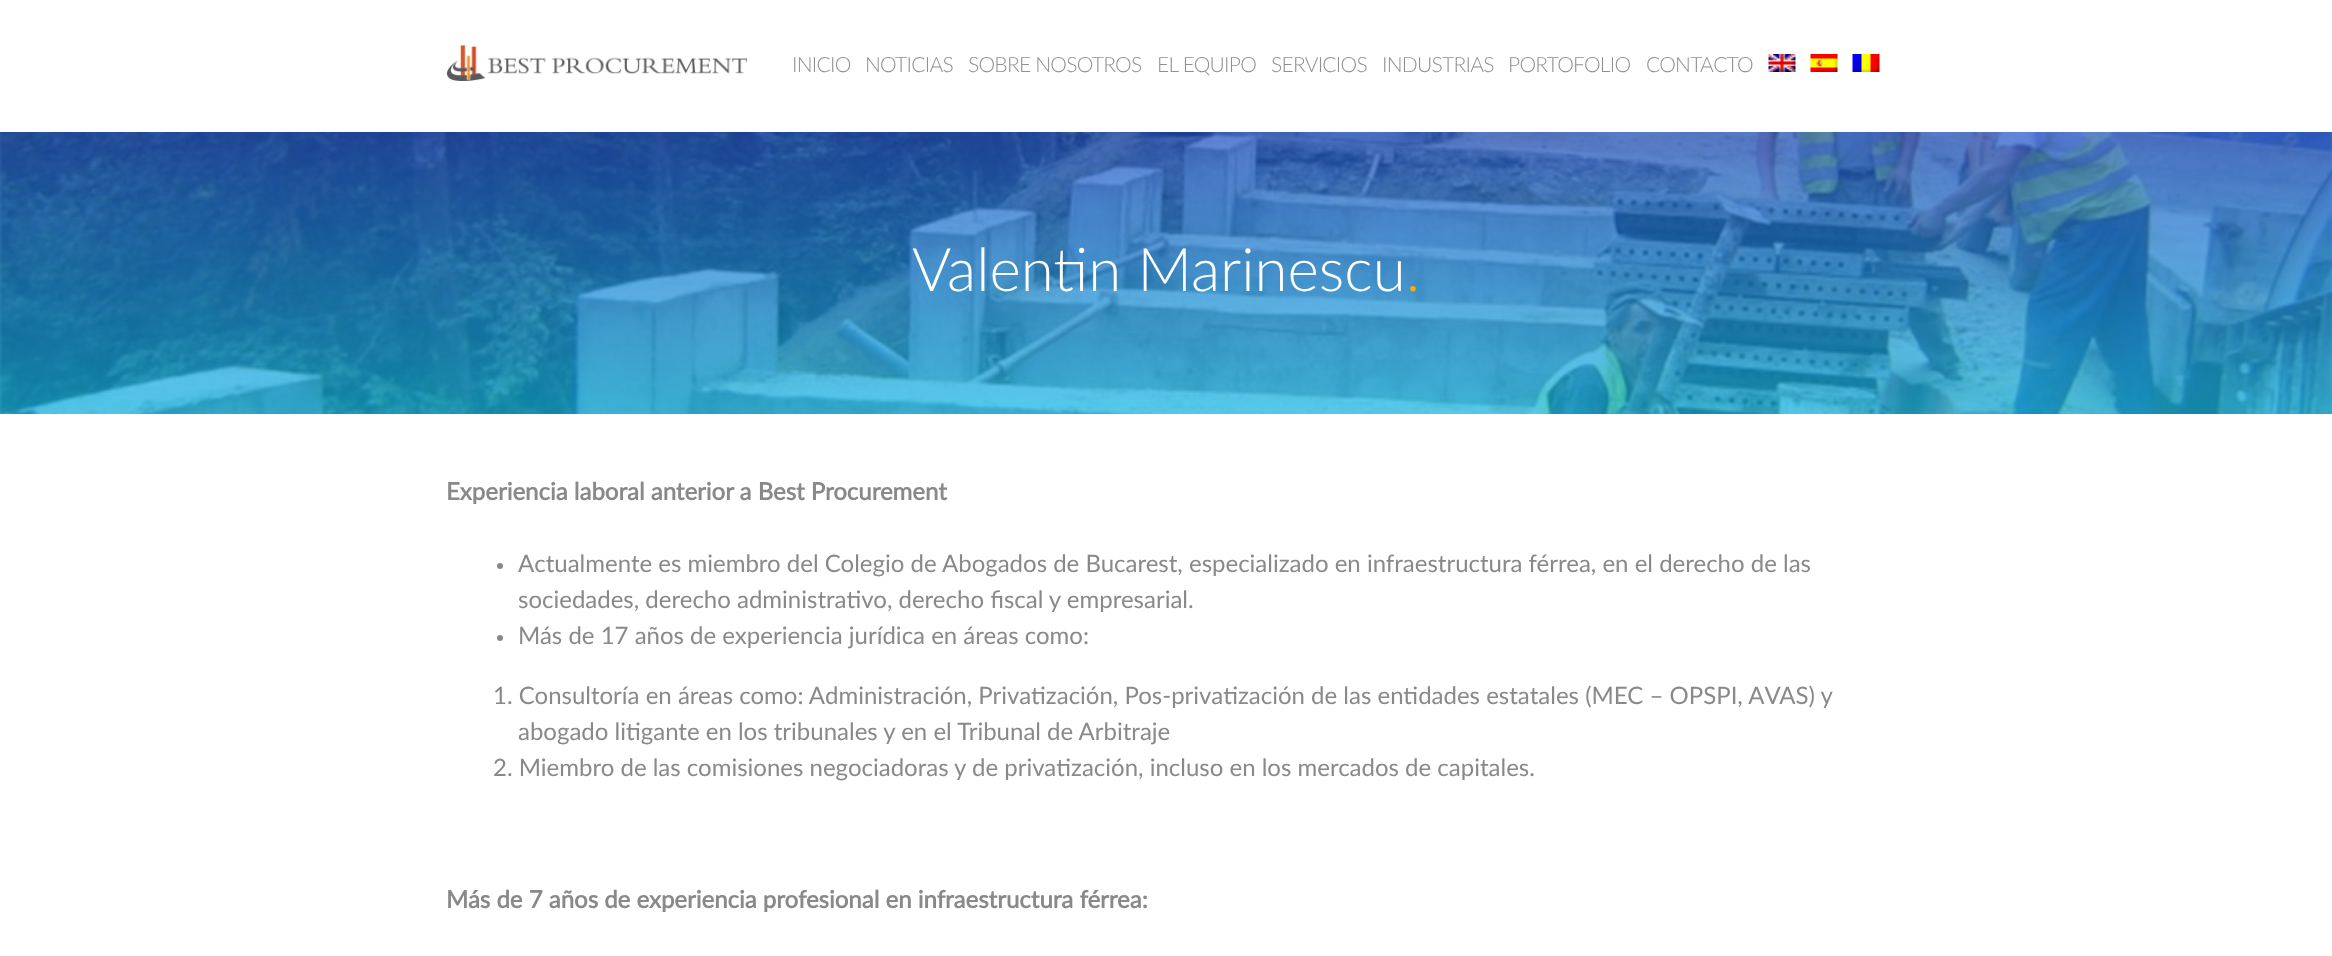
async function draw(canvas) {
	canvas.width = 2332;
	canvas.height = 956;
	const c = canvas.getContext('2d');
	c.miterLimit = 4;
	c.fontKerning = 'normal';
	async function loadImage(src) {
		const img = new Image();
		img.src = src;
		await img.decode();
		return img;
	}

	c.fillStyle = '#fff';
	c.fillRect(0, 0, 2332, 956);
	c.drawImage(await loadImage('img1.png'), 447, 45, 300, 36);
	c.letterSpacing = '-0.75px';
	c.font = '300 21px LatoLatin';
	c.fillStyle = '#909090';
	for (const [text, x, y] of [
		['INICIO', 792, 72],
		['NOTICIAS', 865, 72],
		['SOBRE NOSOTROS', 968, 72],
		['EL EQUIPO', 1157, 72],
		['SERVICIOS', 1271, 72],
		['INDUSTRIAS', 1382, 72],
		['PORTOFOLIO', 1508, 72],
		['CONTACTO', 1646, 72],
	]) {
		c.fillText(text, x, y);
	}
	c.drawImage(await loadImage('img2.png'), 1768, 54, 28, 18);
	c.drawImage(await loadImage('img3.png'), 1810, 54, 28, 18);
	c.drawImage(await loadImage('img4.png'), 1852, 54, 28, 18);
	c.drawImage(await loadImage('img5.png'), 0, 132, 2332, 282);
	c.letterSpacing = '0px';
	c.font = '300 60px LatoLatin';
	c.fillStyle = '#fff';
	c.fillText('Valentin Marinescu', 912, 291);
	c.fillStyle = '#ffae00';
	c.fillText('.', 1406, 291);
	c.font = 'bold 24px LatoLatin';
	c.fillStyle = '#898989';
	c.fillText('Experiencia laboral anterior a Best Procurement', 446, 500);
	c.beginPath();
	c.arc(500, 566, 3, 0, 2 * Math.PI);
	c.fill();
	c.font = '24px LatoLatin';
	c.fillText('Actualmente es miembro del Colegio de Abogados de Bucarest, especializado en infraestructura férrea, en el derecho de las', 518, 572);
	c.fillText('sociedades, derecho administrativo, derecho fiscal y empresarial.', 518, 608);
	c.beginPath();
	c.arc(500, 638, 3, 0, 2 * Math.PI);
	c.fill();
	for (const [text, x, y] of [
		['Más de 17 años de experiencia jurídica en áreas como:', 518, 644],
		['1. Consultoría en áreas como: Administración, Privatización, Pos-privatización de las entidades estatales (MEC – OPSPI, AVAS) y', 493, 704],
		['abogado litigante en los tribunales y en el Tribunal de Arbitraje', 518, 740],
		['2. Miembro de las comisiones negociadoras y de privatización, incluso en los mercados de capitales.', 493, 776],
	]) {
		c.fillText(text, x, y);
	}
	c.font = 'bold 24px LatoLatin';
	c.fillText('Más de 7 años de experiencia profesional en infraestructura férrea:', 446, 908);
}

draw(document.querySelector('canvas'));
